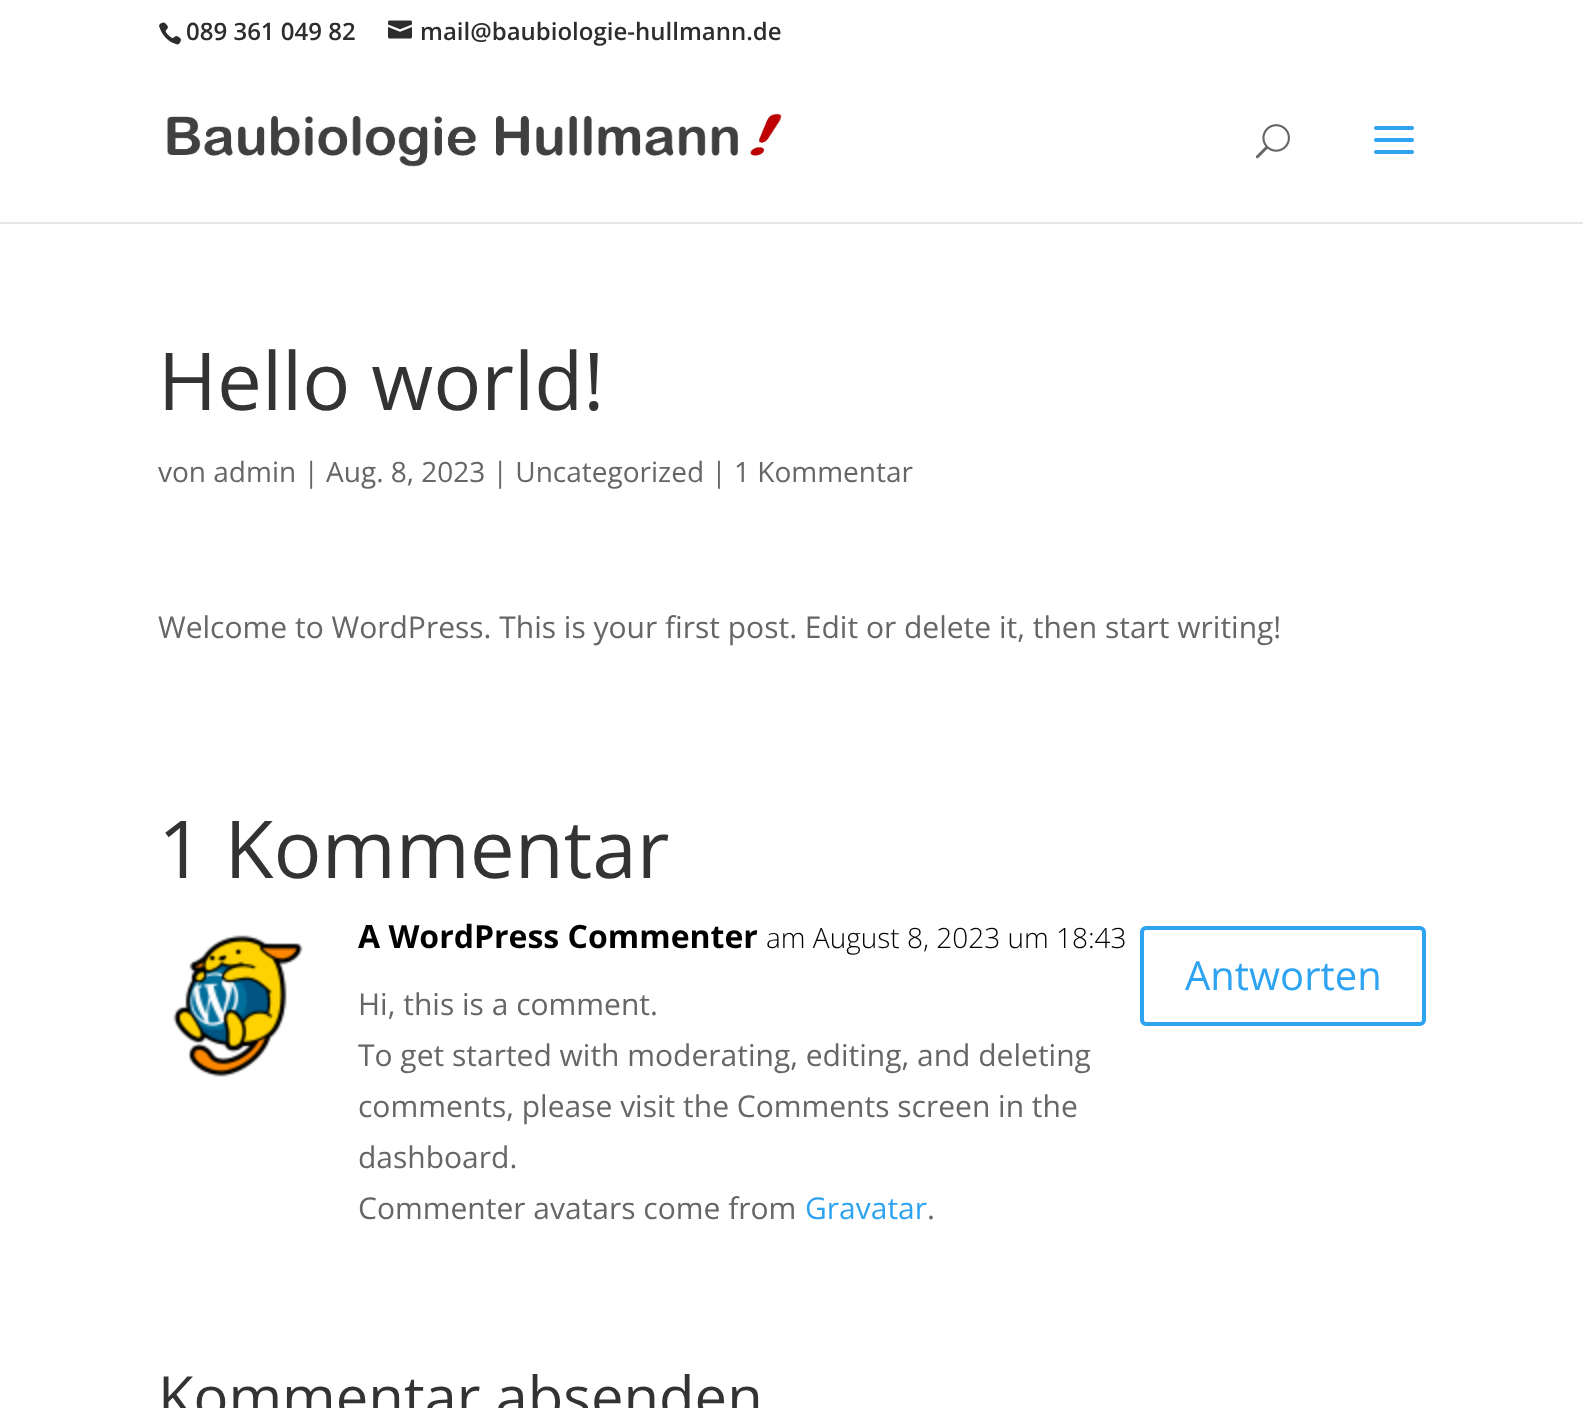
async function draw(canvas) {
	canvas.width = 1583;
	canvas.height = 1408;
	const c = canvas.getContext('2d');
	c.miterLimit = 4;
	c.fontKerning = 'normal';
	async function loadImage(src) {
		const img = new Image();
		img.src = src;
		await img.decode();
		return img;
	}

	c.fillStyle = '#fff';
	c.fillRect(0, 0, 1583, 1408);
	c.drawImage(await loadImage('img1.png'), 159, 22, 22, 23);
	c.font = '600 24px Open Sans';
	c.fillStyle = '#2d2d2d';
	c.fillText('089 361 049 82', 186, 40);
	c.drawImage(await loadImage('img2.png'), 388, 20, 24, 19);
	c.fillText('mail@baubiologie-hullmann.de', 420, 40);
	c.fillStyle = '#e6e6e6';
	c.fillRect(0, 222, 1583, 2);
	c.drawImage(await loadImage('img3.png'), 167, 113, 615, 54);
	c.drawImage(await loadImage('img4.png'), 1255, 124, 35, 35);
	c.drawImage(await loadImage('img5.png'), 1374, 126, 40, 28);
	c.font = '80px Open Sans';
	c.fillStyle = '#333';
	c.fillText('Hello world!', 158, 410);
	c.font = '28px Open Sans';
	c.fillStyle = '#666';
	c.fillText('von admin | Aug. 8, 2023 | Uncategorized | 1 Kommentar', 158, 482);
	c.font = '30px Open Sans';
	c.fillText('Welcome to WordPress. This is your first post. Edit or delete it, then start writing!', 158, 638);
	c.font = '80px Open Sans';
	c.fillStyle = '#333';
	c.fillText('1 Kommentar', 158, 878);
	c.drawImage(await loadImage('img6.png'), 173, 935, 130, 142);
	c.font = 'bold 32px Open Sans';
	c.fillStyle = '#000';
	c.fillText('A WordPress Commenter', 358, 948);
	c.font = '300 28px Open Sans';
	c.fillText('am August 8, 2023 um 18:43', 766, 948);
	c.beginPath();
	c.roundRect(1142, 928, 282, 96, 4);
	c.strokeStyle = '#2ea3f2';
	c.lineWidth = 4;
	c.stroke();
	c.font = '40px Open Sans';
	c.fillStyle = '#2ea3f2';
	c.fillText('Antworten', 1185, 990);
	c.font = '30px Open Sans';
	c.fillStyle = '#666';
	for (const [text, x, y] of [
		['Hi, this is a comment.', 358, 1015],
		['To get started with moderating, editing, and deleting', 358, 1066],
		['comments, please visit the Comments screen in the', 358, 1117],
		['dashboard.', 358, 1168],
		['Commenter avatars come from', 358, 1219],
	]) {
		c.fillText(text, x, y);
	}
	c.fillStyle = '#2ea3f2';
	c.fillText('Gravatar', 805, 1219);
	c.fillStyle = '#666';
	c.fillText('.', 927, 1219);
	c.font = '58px Open Sans';
	c.fillStyle = '#333';
	c.fillText('Kommentar absenden', 158, 1418);
}

draw(document.querySelector('canvas'));
